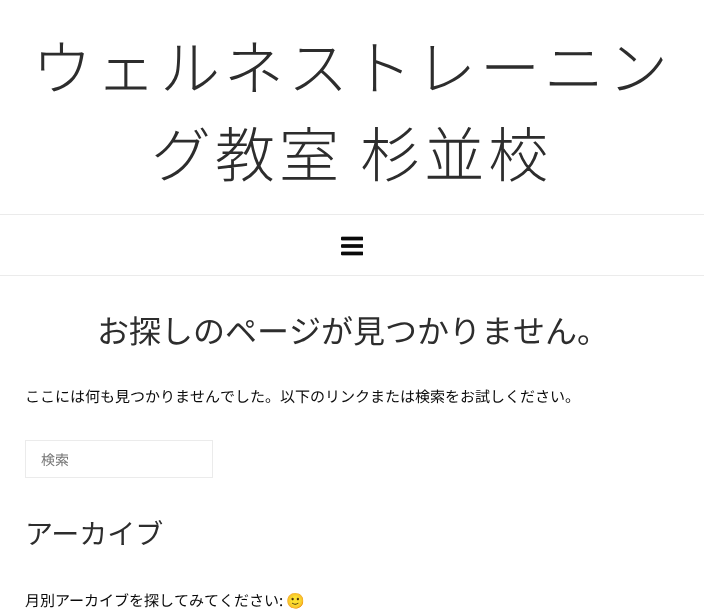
async function draw(canvas) {
	canvas.width = 704;
	canvas.height = 613;
	const c = canvas.getContext('2d');
	c.miterLimit = 4;
	c.fontKerning = 'normal';
	async function loadImage(src) {
		const img = new Image();
		img.src = src;
		await img.decode();
		return img;
	}

	c.fillStyle = '#fff';
	c.fillRect(0, 0, 704, 613);
	c.fillStyle = '#ebebeb';
	c.fillRect(0, 275, 704, 1);
	c.letterSpacing = '4px';
	c.font = '300 60px Noto Sans JP';
	c.fillStyle = '#2d2d2d';
	c.fillText('ウェルネストレーニン', 32, 90);
	c.fillText('グ教室 杉並校', 151, 177);
	c.fillStyle = '#ebebeb';
	c.fillRect(0, 214, 704, 1);
	c.drawImage(await loadImage('img1.png'), 341, 236, 22, 20);
	c.letterSpacing = '0px';
	c.font = '32px Noto Sans JP';
	c.fillStyle = '#2d2d2d';
	c.fillText('お探しのページが見つかりません。', 97, 343);
	c.font = '15px Noto Sans JP';
	c.fillStyle = '#0a0a0a';
	c.fillText('ここには何も見つかりませんでした。以下のリンクまたは検索をお試しください。', 25, 402);
	c.strokeStyle = '#ebebeb';
	c.strokeRect(25.5, 440.5, 187, 37);
	c.font = '14px Noto Sans JP';
	c.fillStyle = '#757575';
	c.fillText('検索', 41, 465);
	c.font = '28px Noto Sans JP';
	c.fillStyle = '#2d2d2d';
	c.fillText('アーカイブ', 25, 544);
	c.font = '15px Noto Sans JP';
	c.fillStyle = '#0a0a0a';
	c.fillText('月別アーカイブを探してみてください:', 25, 606);
	c.font = '15px Noto Color Emoji';
	c.fillText('🙂', 286, 606);
}

draw(document.querySelector('canvas'));
